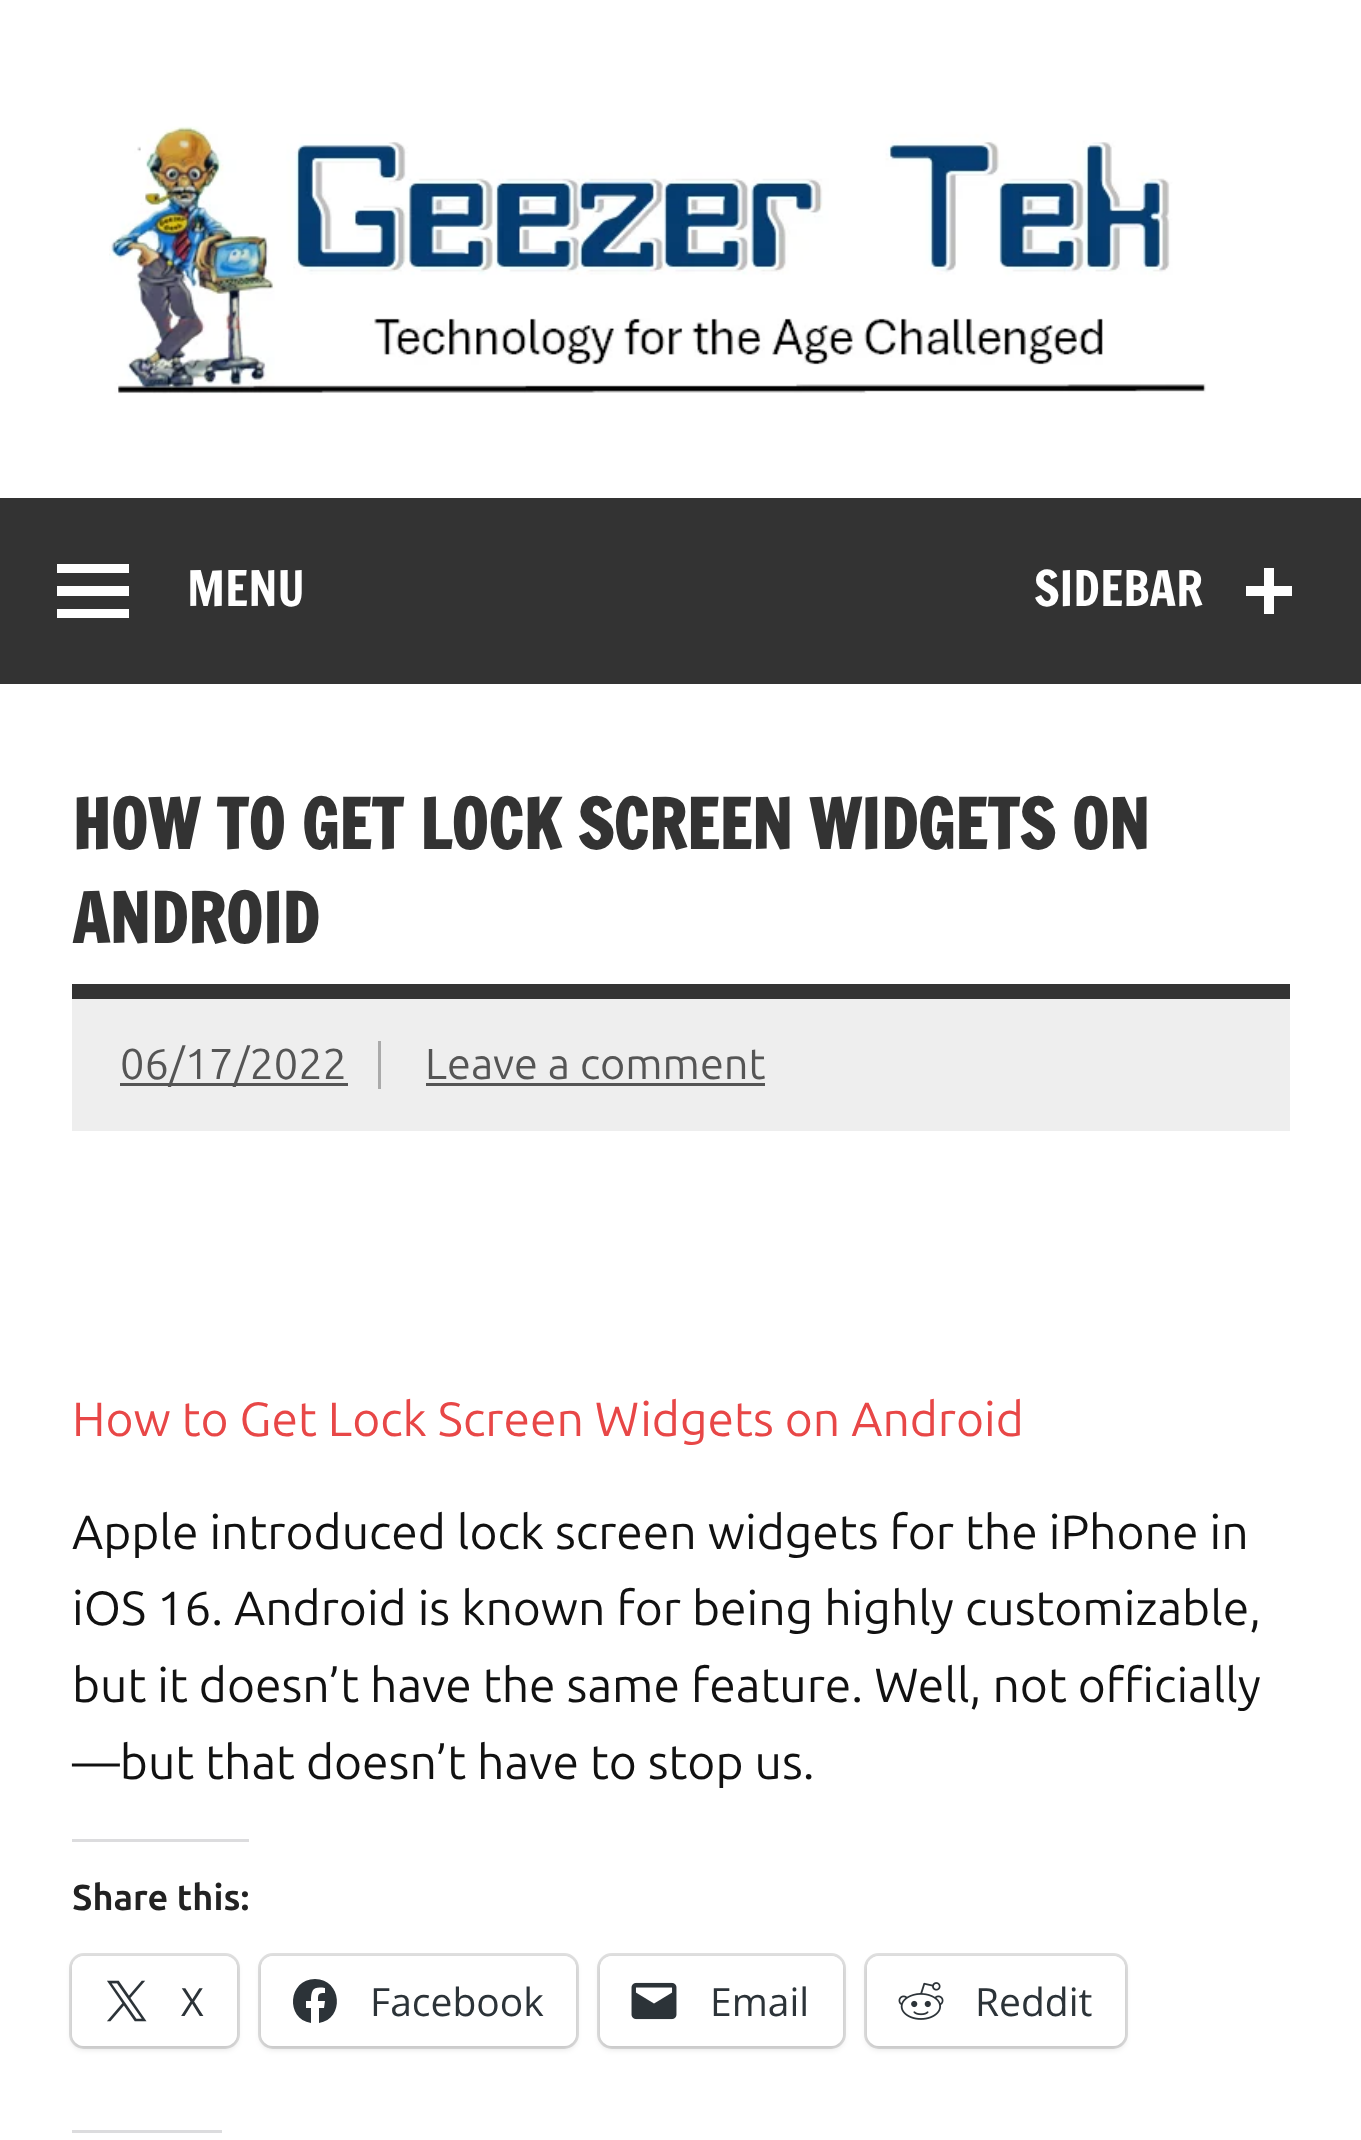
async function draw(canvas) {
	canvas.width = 1361;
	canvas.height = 2140;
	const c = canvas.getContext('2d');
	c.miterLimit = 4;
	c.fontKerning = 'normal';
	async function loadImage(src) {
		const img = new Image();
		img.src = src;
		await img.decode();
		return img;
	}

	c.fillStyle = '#fff';
	c.fillRect(0, 0, 1361, 2140);
	c.drawImage(await loadImage('img1.png'), 109, 126, 1097, 268);
	c.fillStyle = '#333';
	c.fillRect(0, 498, 1361, 186);
	c.fillStyle = '#fff';
	c.beginPath();
	c.moveTo(57, 618);
	c.lineTo(57, 609);
	c.lineTo(129, 609);
	c.lineTo(129, 618);
	c.closePath();
	c.moveTo(57, 564);
	c.lineTo(129, 564);
	c.lineTo(129, 573);
	c.lineTo(57, 573);
	c.closePath();
	c.moveTo(57, 596);
	c.lineTo(57, 586);
	c.lineTo(129, 586);
	c.lineTo(129, 596);
	c.closePath();
	c.fill();
	c.font = '48px Francois One';
	c.fillText('MENU', 187, 606);
	c.fillText('SIDEBAR', 1034, 606);
	c.beginPath();
	c.moveTo(1292, 586);
	c.lineTo(1292, 596);
	c.lineTo(1274, 596);
	c.lineTo(1274, 614);
	c.lineTo(1264, 614);
	c.lineTo(1264, 596);
	c.lineTo(1246, 596);
	c.lineTo(1246, 586);
	c.lineTo(1264, 586);
	c.lineTo(1264, 568);
	c.lineTo(1274, 568);
	c.lineTo(1274, 586);
	c.closePath();
	c.fill();
	c.fillStyle = '#333';
	c.fillRect(72, 984, 1218, 15);
	c.font = 'bold 67.25px Francois One';
	c.fillText('HOW TO GET LOCK SCREEN WIDGETS ON', 72, 849);
	c.fillText('ANDROID', 72, 943);
	c.fillStyle = '#eee';
	c.fillRect(72, 999, 1218, 132);
	c.fillStyle = '#555';
	c.fillRect(120, 1083, 228, 3);
	c.font = '43.25px Ubuntu';
	c.fillText('06/17/2022', 120, 1079);
	c.fillStyle = '#aaa';
	c.fillRect(378, 1041, 3, 48);
	c.fillStyle = '#555';
	c.fillText('Leave a comment', 425, 1079);
	c.fillRect(426, 1083, 339, 3);
	c.font = '48px Ubuntu';
	c.fillStyle = '#e84747';
	c.fillText('How to Get Lock Screen Widgets on Android', 72, 1436);
	c.fillStyle = '#111';
	for (const [text, x, y] of [
		['Apple introduced lock screen widgets for the iPhone in', 72, 1549],
		['iOS 16. Android is known for being highly customizable,', 72, 1625],
		['but it doesn’t have the same feature. Well, not officially', 72, 1702],
		['—but that doesn’t have to stop us.', 72, 1779],
	]) {
		c.fillText(text, x, y);
	}
	c.fillStyle = '#dcdcde';
	c.fillRect(72, 1839, 177, 3);
	c.font = 'bold 36px Ubuntu';
	c.fillStyle = '#222';
	c.fillText('Share this:', 72, 1910);
	c.beginPath();
	c.roundRect(70.5, 1954.5, 168, 93, 13.5);
	c.strokeStyle = '#e0e0e0';
	c.lineWidth = 3;
	c.stroke();
	c.fillStyle = '#0000001f';
	c.filter = 'blur(3px)';
	c.beginPath();
	c.roundRect(72, 1959, 165, 90, 12);
	c.fill();
	c.filter = 'none';
	c.fillStyle = '#fff';
	c.beginPath();
	c.roundRect(72, 1956, 165, 90, 12);
	c.fill();
	c.drawImage(await loadImage('img2.png'), 107, 1980, 40, 42);
	c.font = '39px Open Sans';
	c.fillStyle = '#2c3338';
	c.fillText('X', 181, 2016);
	c.beginPath();
	c.roundRect(259.5, 1954.5, 318, 93, 13.5);
	c.stroke();
	c.fillStyle = '#0000001f';
	c.filter = 'blur(3px)';
	c.beginPath();
	c.roundRect(261, 1959, 315, 90, 12);
	c.fill();
	c.filter = 'none';
	c.fillStyle = '#fff';
	c.beginPath();
	c.roundRect(261, 1956, 315, 90, 12);
	c.fill();
	c.fillStyle = '#2c3338';
	c.beginPath();
	c.moveTo(315, 1979);
	c.bezierCurveTo(288, 1979, 285, 2019, 311, 2023);
	c.lineTo(311, 2008);
	c.lineTo(306, 2008);
	c.lineTo(306, 2001);
	c.lineTo(311, 2001);
	c.bezierCurveTo(311, 1990, 313, 1986, 325, 1988);
	c.lineTo(325, 1993);
	c.bezierCurveTo(318, 1993, 318, 1994, 318, 2001);
	c.lineTo(325, 2001);
	c.lineTo(324, 2008);
	c.lineTo(319, 2008);
	c.lineTo(319, 2023);
	c.bezierCurveTo(345, 2019, 342, 1979, 315, 1979);
	c.closePath();
	c.fill();
	c.fillText('Facebook', 370, 2016);
	c.beginPath();
	c.roundRect(598.5, 1954.5, 246, 93, 13.5);
	c.stroke();
	c.fillStyle = '#0000001f';
	c.filter = 'blur(3px)';
	c.beginPath();
	c.roundRect(600, 1959, 243, 90, 12);
	c.fill();
	c.filter = 'none';
	c.fillStyle = '#fff';
	c.beginPath();
	c.roundRect(600, 1956, 243, 90, 12);
	c.fill();
	c.drawImage(await loadImage('img3.png'), 631, 1982, 46, 38);
	c.fillStyle = '#2c3338';
	c.fillText('Email', 710, 2016);
	c.beginPath();
	c.roundRect(865.5, 1954.5, 261, 93, 13.5);
	c.stroke();
	c.fillStyle = '#0000001f';
	c.filter = 'blur(3px)';
	c.beginPath();
	c.roundRect(867, 1959, 258, 90, 12);
	c.fill();
	c.filter = 'none';
	c.fillStyle = '#fff';
	c.beginPath();
	c.roundRect(867, 1956, 258, 90, 12);
	c.fill();
	c.drawImage(await loadImage('img4.png'), 898, 1982, 46, 38);
	c.fillStyle = '#2c3338';
	c.fillText('Reddit', 975, 2016);
	c.fillStyle = '#dcdcde';
	c.fillRect(72, 2130, 150, 3);
}

draw(document.querySelector('canvas'));
